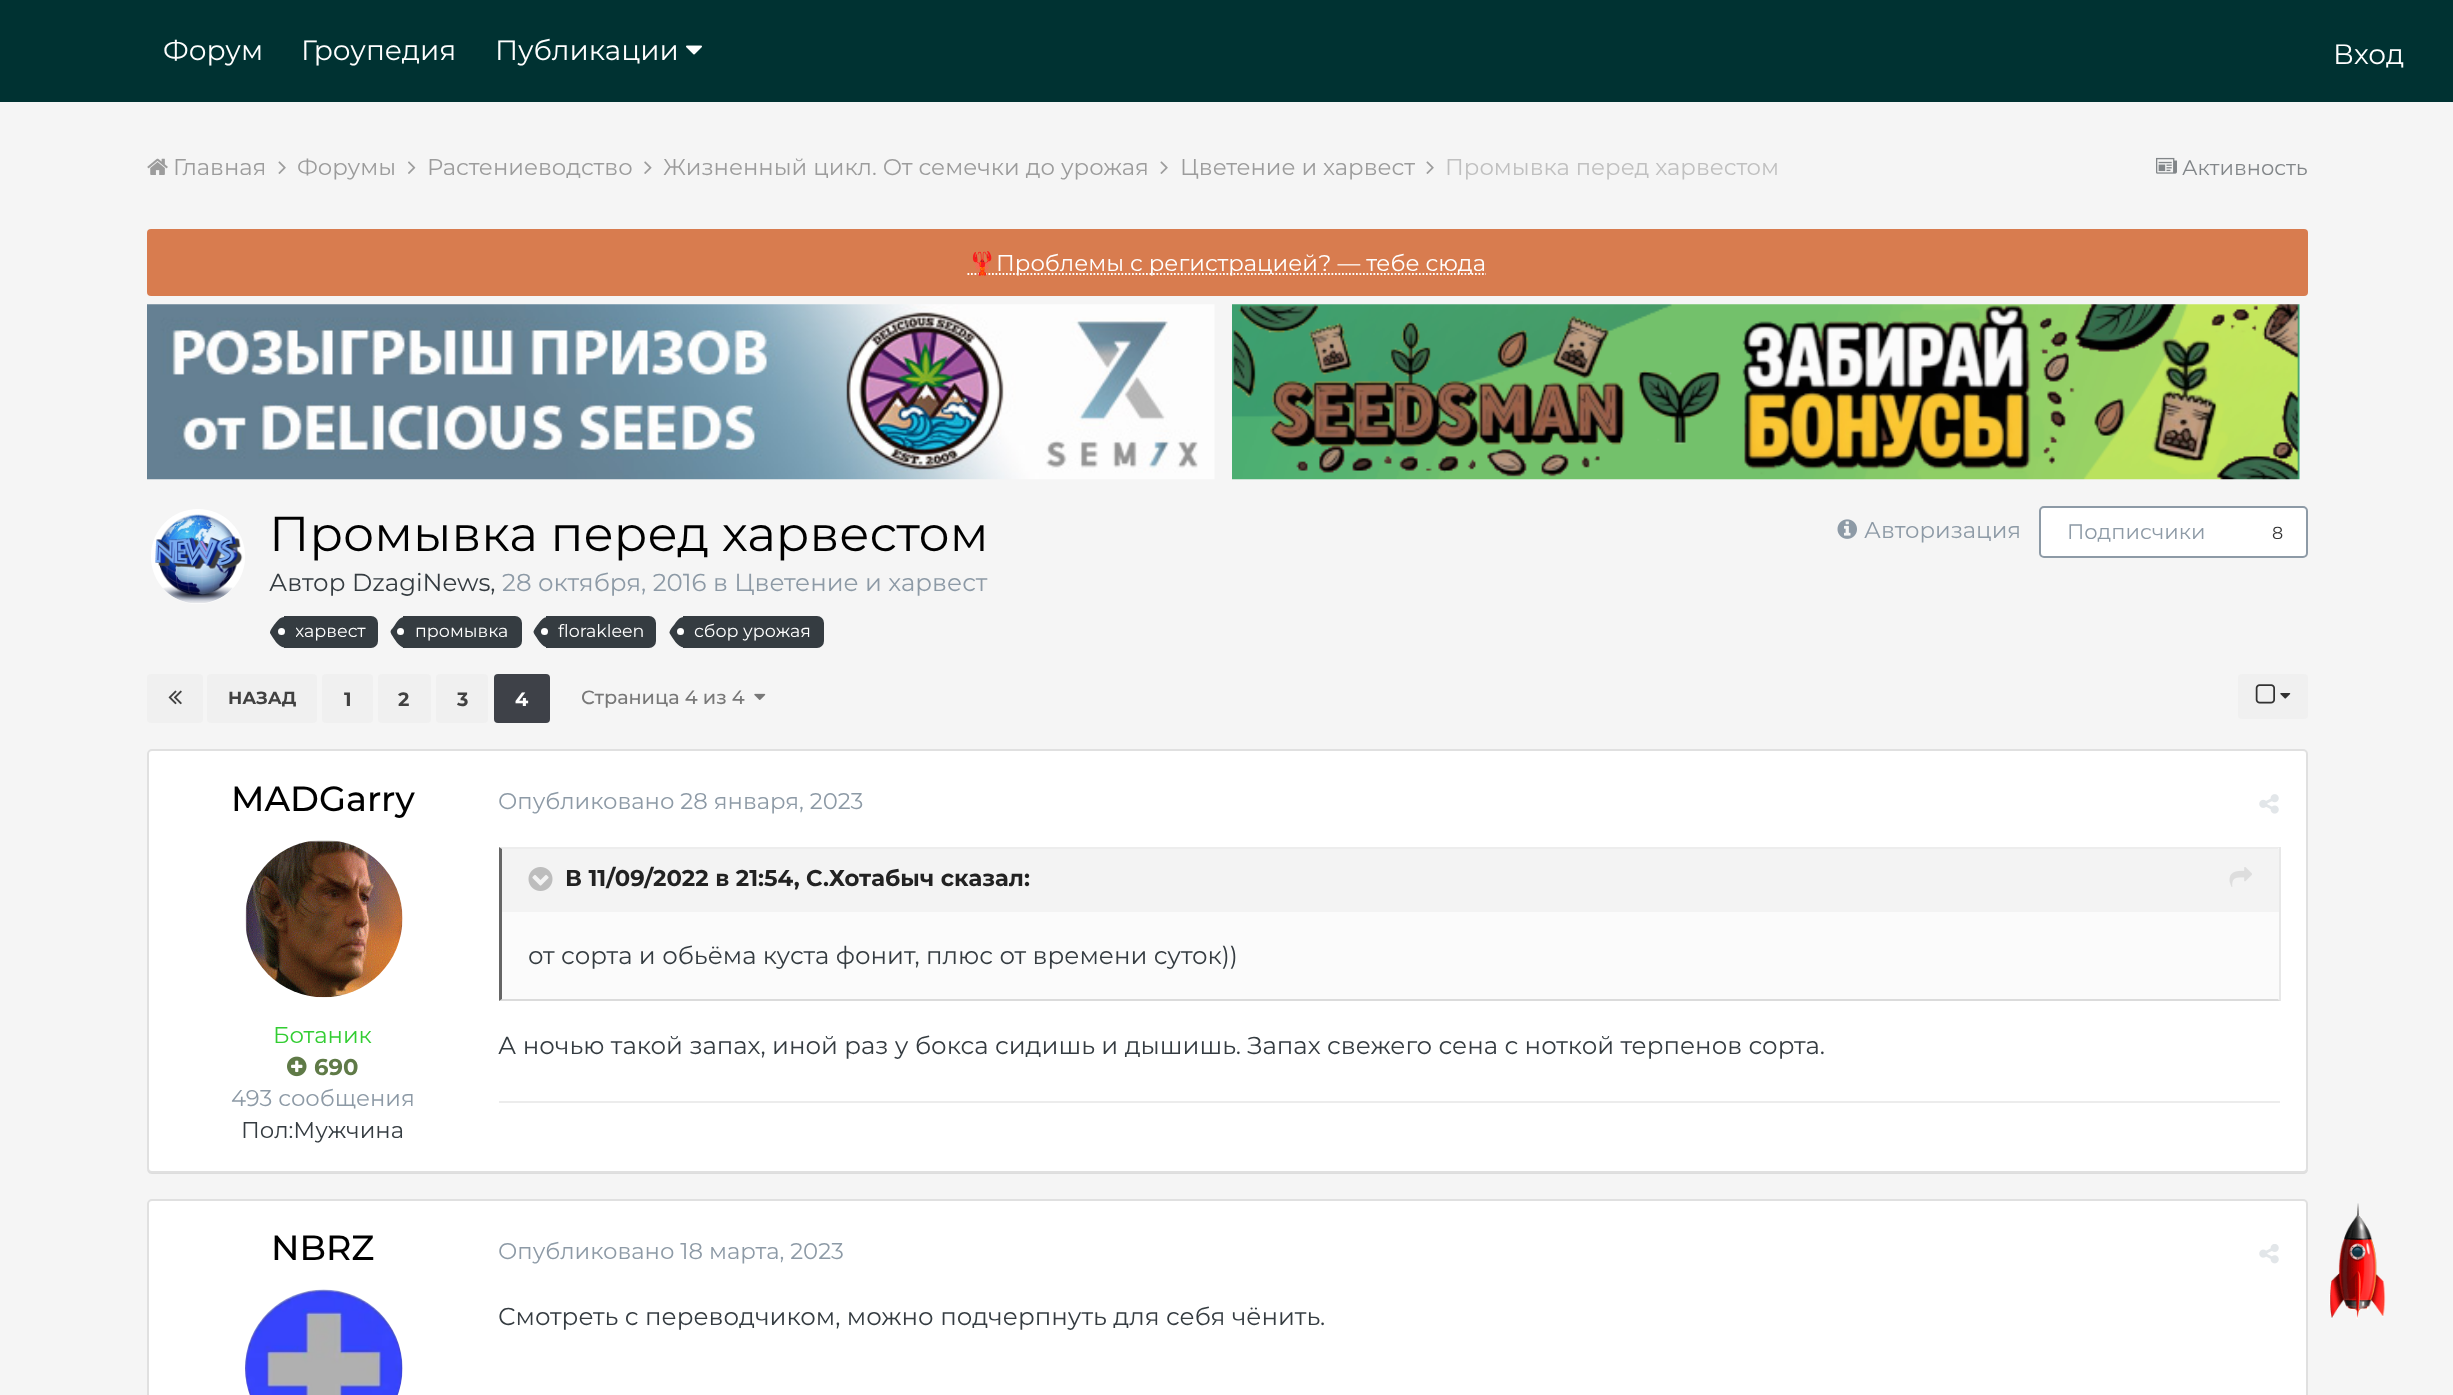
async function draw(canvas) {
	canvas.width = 2453;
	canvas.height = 1395;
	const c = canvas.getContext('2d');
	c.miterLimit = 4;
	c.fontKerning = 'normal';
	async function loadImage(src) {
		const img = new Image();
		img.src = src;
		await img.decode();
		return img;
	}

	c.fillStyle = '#f5f5f5';
	c.fillRect(0, 0, 2453, 1395);
	c.fillStyle = '#003232';
	c.fillRect(0, 0, 2453, 102);
	c.font = '28px Montserrat';
	c.fillStyle = '#fff';
	for (const [text, x, y] of [
		['Форум', 163, 60],
		['Гроупедия', 301, 60],
		['Публикации', 495, 60],
	]) {
		c.fillText(text, x, y);
	}
	c.drawImage(await loadImage('img1.png'), 686, 45, 16, 10);
	c.fillText('Вход', 2333, 64);
	c.drawImage(await loadImage('img2.png'), 147, 158, 21, 17);
	c.font = '22.75px Montserrat';
	c.fillStyle = '#9c9c9c';
	c.fillText('Главная', 173, 175);
	c.drawImage(await loadImage('img3.png'), 278, 161, 8, 13);
	c.fillText('Форумы', 297, 175);
	c.drawImage(await loadImage('img4.png'), 408, 161, 8, 13);
	c.fillText('Растениеводство', 427, 175);
	c.drawImage(await loadImage('img5.png'), 644, 161, 8, 13);
	c.fillText('Жизненный цикл. От семечки до урожая', 663, 175);
	c.drawImage(await loadImage('img3.png'), 1160, 161, 8, 13);
	c.fillText('Цветение и харвест', 1180, 175);
	c.drawImage(await loadImage('img3.png'), 1426, 161, 8, 13);
	c.fillStyle = '#c0c0c0';
	c.fillText('Промывка перед харвестом', 1445, 175);
	c.drawImage(await loadImage('img6.png'), 2156, 157, 21, 17);
	c.font = '21px Montserrat';
	c.fillStyle = '#828689';
	c.fillText('Активность', 2182, 175);
	c.fillStyle = '#d87c4f';
	c.beginPath();
	c.roundRect(147, 229, 2161, 67, 4);
	c.fill();
	c.beginPath();
	c.moveTo(967.5, 274);
	c.lineTo(1486, 274);
	c.strokeStyle = '#fff';
	c.lineWidth = 1.8;
	c.setLineDash([1.75, 1.75]);
	c.stroke();
	c.font = '22.75px Noto Color Emoji';
	c.fillStyle = '#fff';
	c.fillText('🦞', 968, 271);
	c.font = '22.75px Montserrat';
	c.fillText('Проблемы с регистрацией? — тебе сюда', 996, 271);
	c.drawImage(await loadImage('img7.png'), 147, 304, 1068, 176);
	c.drawImage(await loadImage('img8.png'), 1232, 304, 1068, 176);
	c.beginPath();
	c.roundRect(151, 509, 94, 95, 47);
	c.fill();
	c.drawImage(await loadImage('img9.png'), 155, 514, 88, 90);
	c.font = '49px Montserrat';
	c.fillStyle = '#000';
	c.fillText('Промывка перед харвестом', 269, 551);
	c.font = '24.5px Montserrat';
	c.fillStyle = '#353c41';
	c.fillText('Автор DzagiNews,', 269, 591);
	c.fillStyle = '#8d9aa6';
	c.fillText('28 октября, 2016 в Цветение и харвест', 502, 591);
	c.fillStyle = '#353c41';
	c.beginPath();
	c.roundRect(284, 616, 94, 32, [0, 7, 7, 0]);
	c.fill();
	c.beginPath();
	c.moveTo(270, 633);
	c.lineTo(270, 632);
	c.lineTo(284.5, 632);
	c.lineTo(284, 632.5);
	c.lineTo(284.5, 632.5);
	c.lineTo(284.5, 647.5);
	c.bezierCurveTo(278, 647.5, 273, 637.5, 270, 633);
	c.closePath();
	c.moveTo(274, 625);
	c.bezierCurveTo(277, 621.5, 279.5, 617, 284.5, 617);
	c.lineTo(284.5, 632);
	c.lineTo(284, 631.5);
	c.lineTo(284.5, 632);
	c.lineTo(270, 632);
	c.bezierCurveTo(270.5, 629.5, 272.5, 627.5, 274, 625);
	c.closePath();
	c.fill();
	c.save();
	c.beginPath();
	c.rect(296, 616, 70, 32);
	c.clip();
	c.font = '17.5px Montserrat';
	c.fillStyle = '#fff';
	c.fillText('харвест', 295, 637);
	c.restore();
	c.fillStyle = '#fff';
	c.beginPath();
	c.arc(281.5, 631.5, 3.5, 0, 2 * Math.PI);
	c.fill();
	c.fillStyle = '#353c41';
	c.beginPath();
	c.roundRect(403, 616, 119, 32, [0, 7, 7, 0]);
	c.fill();
	c.beginPath();
	c.moveTo(391.5, 634.5);
	c.lineTo(390.5, 632);
	c.lineTo(404.5, 632);
	c.lineTo(404.5, 632.5);
	c.lineTo(404.5, 647.5);
	c.bezierCurveTo(399, 647.5, 394.5, 639, 391.5, 634.5);
	c.closePath();
	c.moveTo(404.5, 632);
	c.lineTo(404.5, 632);
	c.closePath();
	c.moveTo(393.5, 627);
	c.bezierCurveTo(396.5, 623, 399, 617, 404.5, 617);
	c.lineTo(404.5, 632);
	c.lineTo(404.5, 631.5);
	c.lineTo(404.5, 632);
	c.lineTo(390.5, 632);
	c.bezierCurveTo(390.5, 630, 392.5, 628.5, 393.5, 627);
	c.closePath();
	c.moveTo(404.5, 632);
	c.lineTo(404.5, 632);
	c.closePath();
	c.fill('evenodd');
	c.font = '17.5px Montserrat';
	c.fillStyle = '#fff';
	c.fillText('промывка', 415, 637);
	c.beginPath();
	c.arc(400.5, 631.5, 3.5, 0, 2 * Math.PI);
	c.fill();
	c.fillStyle = '#353c41';
	c.beginPath();
	c.roundRect(546, 616, 110, 32, [0, 7, 7, 0]);
	c.fill();
	c.beginPath();
	c.moveTo(534, 633.5);
	c.lineTo(533.5, 632);
	c.lineTo(548, 632);
	c.lineTo(547.5, 632.5);
	c.lineTo(548, 632.5);
	c.lineTo(548, 647.5);
	c.bezierCurveTo(542, 647.5, 537, 638, 534, 633.5);
	c.closePath();
	c.moveTo(537, 625.5);
	c.bezierCurveTo(540, 622, 542.5, 617, 548, 617);
	c.lineTo(548, 632);
	c.lineTo(547.5, 631.5);
	c.lineTo(548, 632);
	c.lineTo(533.5, 632);
	c.bezierCurveTo(533.5, 630.5, 536, 627, 537, 625.5);
	c.closePath();
	c.fill();
	c.fillStyle = '#fff';
	c.fillText('florakleen', 558, 637);
	c.beginPath();
	c.arc(544.5, 631.5, 3.5, 0, 2 * Math.PI);
	c.fill();
	c.fillStyle = '#353c41';
	c.beginPath();
	c.roundRect(683, 616, 141, 32, [0, 7, 7, 0]);
	c.fill();
	c.beginPath();
	c.moveTo(669.5, 633);
	c.lineTo(669.5, 632);
	c.lineTo(684, 632);
	c.lineTo(683.5, 632.5);
	c.lineTo(684, 632.5);
	c.lineTo(684, 647.5);
	c.bezierCurveTo(677.5, 647.5, 672.5, 637.5, 669.5, 633);
	c.closePath();
	c.moveTo(674, 625);
	c.bezierCurveTo(676.5, 621.5, 679, 617, 684, 617);
	c.lineTo(684, 632);
	c.lineTo(683.5, 631.5);
	c.lineTo(684, 632);
	c.lineTo(669.5, 632);
	c.bezierCurveTo(670, 630, 672.5, 626.5, 674, 625);
	c.closePath();
	c.fill();
	c.fillStyle = '#fff';
	c.fillText('сбор урожая', 694, 637);
	c.beginPath();
	c.arc(680.5, 631.5, 3.5, 0, 2 * Math.PI);
	c.fill();
	c.drawImage(await loadImage('img10.png'), 1837, 519, 20, 20);
	c.font = '22.75px Montserrat';
	c.fillStyle = '#8d9aa6';
	c.fillText('Авторизация', 1864, 538);
	c.fillStyle = '#fff';
	c.beginPath();
	c.roundRect(2040, 507, 267, 50, 4);
	c.fill();
	c.strokeStyle = '#8d9aa6';
	c.lineWidth = 2;
	c.setLineDash([]);
	c.stroke();
	c.font = '21px Montserrat';
	c.fillStyle = '#8d9aa6';
	c.fillText('Подписчики', 2067, 539);
	c.font = '17.5px Montserrat';
	c.fillStyle = '#333';
	c.fillText('8', 2272, 539);
	c.fillStyle = '#f0f0f0';
	c.beginPath();
	c.roundRect(147, 674, 56, 49, 4);
	c.fill();
	c.drawImage(await loadImage('img11.png'), 168, 690, 14, 15);
	c.beginPath();
	c.roundRect(207, 674, 110, 49, 4);
	c.fill();
	c.font = 'bold 17.5px Montserrat';
	c.fillStyle = '#414141';
	c.fillText('НАЗАД', 228, 704);
	c.fillStyle = '#f0f0f0';
	c.beginPath();
	c.roundRect(322, 674, 51, 49, 4);
	c.fill();
	c.font = 'bold 19.25px Montserrat';
	c.fillStyle = '#414141';
	c.fillText('1', 344, 706);
	c.fillStyle = '#f0f0f0';
	c.beginPath();
	c.roundRect(378, 674, 53, 49, 4);
	c.fill();
	c.fillStyle = '#414141';
	c.fillText('2', 398, 706);
	c.fillStyle = '#f0f0f0';
	c.beginPath();
	c.roundRect(436, 674, 52, 49, 4);
	c.fill();
	c.fillStyle = '#414141';
	c.fillText('3', 457, 706);
	c.fillStyle = '#3e4148';
	c.beginPath();
	c.roundRect(494, 674, 56, 49, 4);
	c.fill();
	c.fillStyle = '#fff';
	c.fillText('4', 515, 706);
	c.font = '500 19.25px Montserrat';
	c.fillStyle = '#787878';
	c.fillText('Страница 4 из 4', 581, 704);
	c.drawImage(await loadImage('img12.png'), 754, 693, 12, 7);
	c.fillStyle = '#f0f0f0';
	c.beginPath();
	c.roundRect(2238, 674, 70, 45, 4);
	c.fill();
	c.drawImage(await loadImage('img13.png'), 2255, 684, 20, 20);
	c.drawImage(await loadImage('img14.png'), 2280, 693, 11, 6);
	c.fillStyle = '#ddd';
	c.beginPath();
	c.moveTo(147, 1167);
	c.bezierCurveTo(147, 1171, 148, 1174, 152, 1174);
	c.lineTo(2303, 1174);
	c.bezierCurveTo(2306, 1174, 2308, 1172, 2308, 1169);
	c.bezierCurveTo(2307, 1171, 2305, 1172, 2303, 1172);
	c.lineTo(152, 1172);
	c.bezierCurveTo(149, 1172, 147, 1170, 147, 1167);
	c.closePath();
	c.fill();
	c.fillStyle = '#fff';
	c.beginPath();
	c.roundRect(148, 750, 2159, 422, 4);
	c.fill();
	c.strokeStyle = '#e0e0e0';
	c.stroke();
	c.font = '500 35px Montserrat';
	c.fillStyle = '#000';
	c.fillText('MADGarry', 231, 811);
	c.drawImage(await loadImage('img15.png'), 245, 840, 158, 158);
	c.font = '22.75px Montserrat';
	c.fillStyle = '#32cd32';
	c.fillText('Ботаник', 273, 1043);
	c.drawImage(await loadImage('img16.png'), 287, 1056, 20, 21);
	c.font = 'bold 22.75px Montserrat';
	c.fillStyle = '#5f7a47';
	c.fillText('690', 314, 1075);
	c.font = '22.75px Montserrat';
	c.fillStyle = '#8d9aa6';
	c.fillText('493 сообщения', 231, 1106);
	c.fillStyle = '#353c41';
	c.fillText('Пол:Мужчина', 241, 1138);
	c.fillStyle = '#8d9aa6';
	c.fillText('Опубликовано 28 января, 2023', 498, 809);
	c.drawImage(await loadImage('img17.png'), 2259, 794, 20, 20);
	c.fillStyle = '#fbfbfb';
	c.fillRect(502, 912, 1777, 87);
	c.fillStyle = '#ededed';
	c.beginPath();
	c.moveTo(499, 847);
	c.lineTo(2280, 847);
	c.lineTo(2278, 849);
	c.lineTo(502, 849);
	c.closePath();
	c.fill();
	c.fillStyle = '#e8e8e8';
	c.fillRect(2279, 847, 2, 154);
	c.fillStyle = '#dbdbdb';
	c.beginPath();
	c.moveTo(2280, 1001);
	c.lineTo(499, 1001);
	c.lineTo(502, 999);
	c.lineTo(2278, 999);
	c.closePath();
	c.fill();
	c.fillStyle = '#666';
	c.beginPath();
	c.moveTo(499, 1001);
	c.lineTo(499, 847);
	c.lineTo(502, 849);
	c.lineTo(502, 999);
	c.closePath();
	c.fill();
	c.fillStyle = '#f3f3f3';
	c.fillRect(502, 849, 1777, 63);
	c.drawImage(await loadImage('img18.png'), 528, 867, 25, 24);
	c.font = 'bold 22.75px Montserrat';
	c.fillStyle = '#222';
	c.fillText('В 11/09/2022 в 21:54, С.Хотабыч сказал:', 565, 886);
	c.drawImage(await loadImage('img19.png'), 2229, 867, 23, 20);
	c.font = '24.5px Montserrat';
	c.fillStyle = '#353c41';
	c.fillText('от сорта и обьёма куста фонит, плюс от времени суток))', 528, 964);
	c.fillText('А ночью такой запах, иной раз у бокса сидишь и дышишь. Запах свежего сена с ноткой терпенов сорта.', 498, 1054);
	c.fillStyle = '#ececec';
	c.fillRect(499, 1101, 1781, 2);
	c.fillStyle = '#fff';
	c.beginPath();
	c.roundRect(148, 1200, 2159, 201, 4);
	c.fill();
	c.stroke();
	c.font = '500 35px Montserrat';
	c.fillStyle = '#000';
	c.fillText('NBRZ', 271, 1260);
	c.drawImage(await loadImage('img20.png'), 245, 1289, 158, 106);
	c.font = '22.75px Montserrat';
	c.fillStyle = '#8d9aa6';
	c.fillText('Опубликовано 18 марта, 2023', 498, 1259);
	c.drawImage(await loadImage('img21.png'), 2259, 1244, 20, 20);
	c.font = '24.5px Montserrat';
	c.fillStyle = '#353c41';
	c.fillText('Смотреть с переводчиком, можно подчерпнуть для себя чёнить.', 498, 1325);
	c.drawImage(await loadImage('img22.png'), 2329, 1203, 57, 116);
}

draw(document.querySelector('canvas'));
